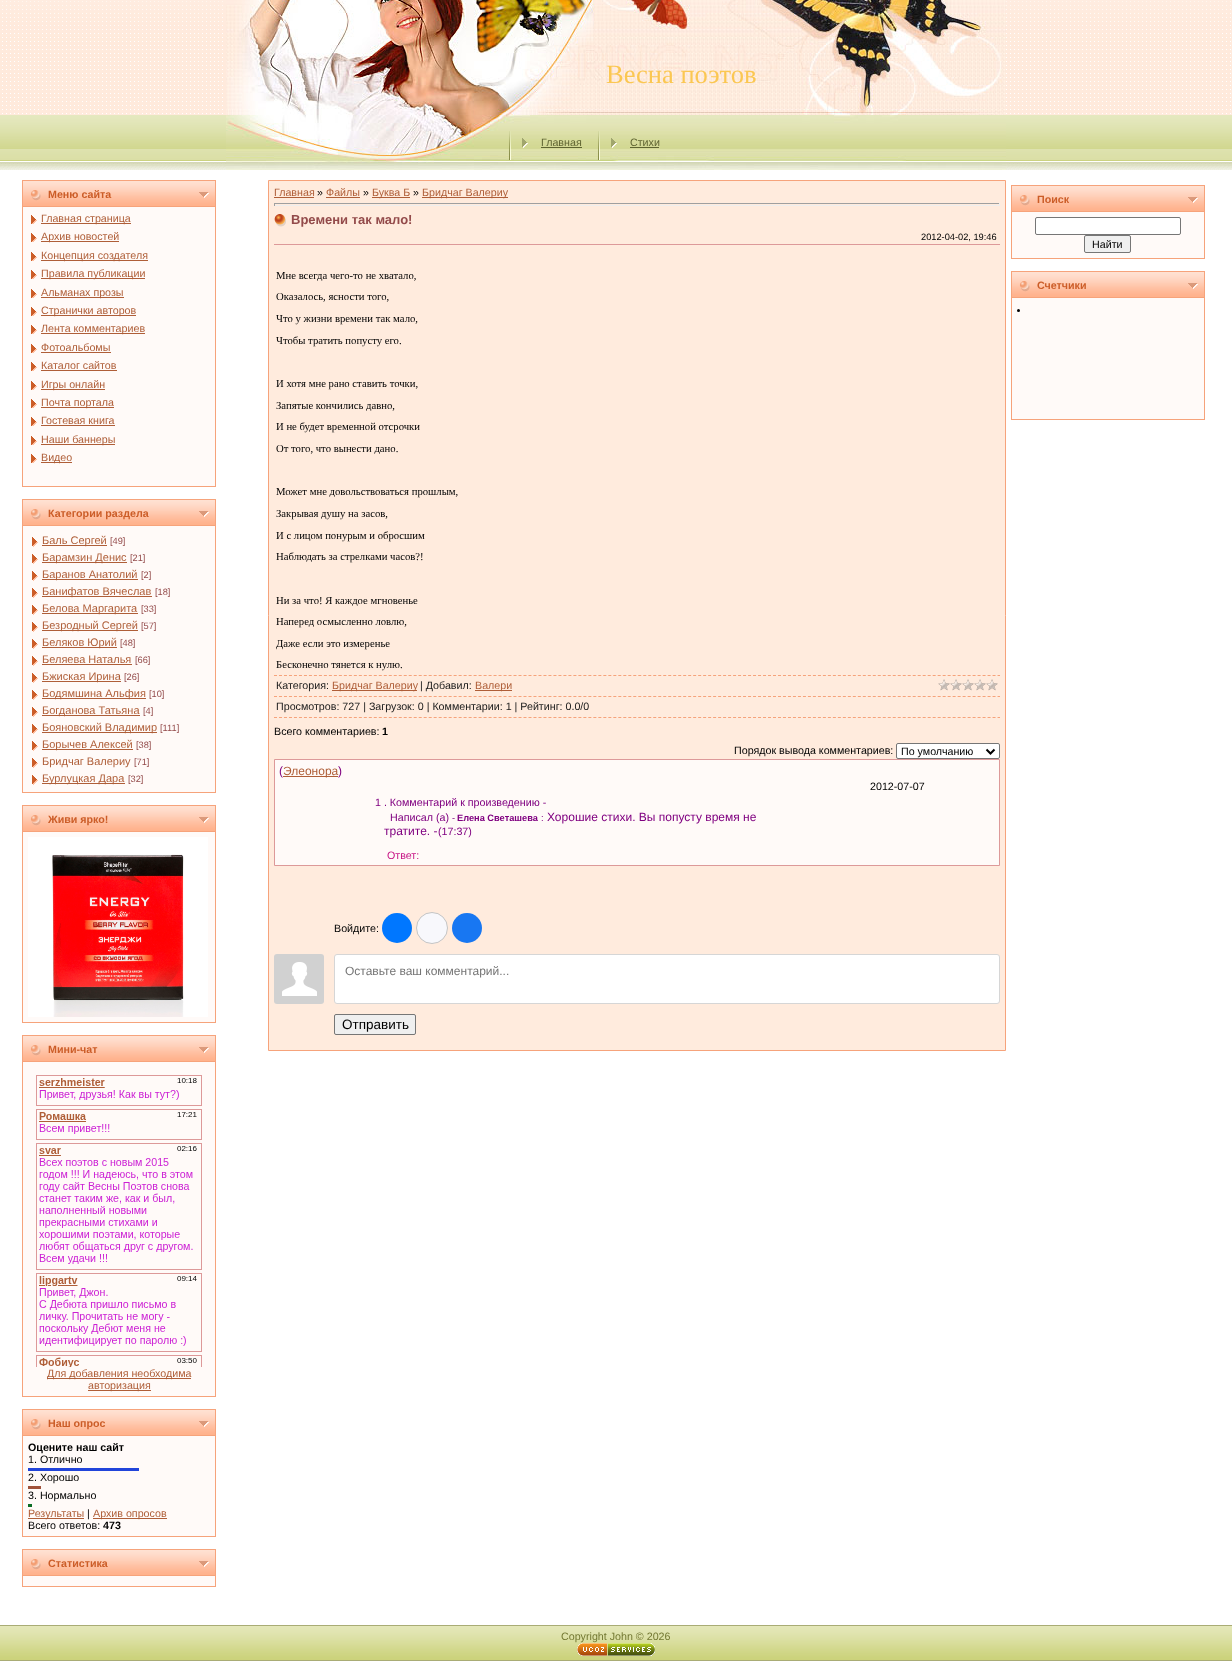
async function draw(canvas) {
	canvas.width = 1232;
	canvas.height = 1661;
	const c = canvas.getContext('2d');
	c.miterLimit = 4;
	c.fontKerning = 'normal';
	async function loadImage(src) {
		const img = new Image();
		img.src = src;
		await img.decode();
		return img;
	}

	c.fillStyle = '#fff';
	c.fillRect(0, 0, 1232, 1661);
	c.drawImage(await loadImage('img1.png'), 0, 0, 1232, 170);
	c.drawImage(await loadImage('img2.png'), 226, 0, 780, 115);
	c.font = '26.5px Liberation Serif';
	c.fillStyle = '#fbc752';
	c.fillText('Весна поэтов', 606, 83);
	c.drawImage(await loadImage('img3.png'), 226, 115, 780, 55);
	c.drawImage(await loadImage('img4.png'), 509, 131, 19, 29);
	c.font = '10.7px Liberation Sans';
	c.fillStyle = '#5f6431';
	c.fillText('Главная', 541, 146);
	c.fillRect(541, 147, 41, 1);
	c.drawImage(await loadImage('img5.png'), 598, 131, 19, 29);
	c.fillText('Стихи', 630, 146);
	c.fillRect(630, 147, 29, 1);
	c.fillStyle = '#f6a37b';
	c.fillRect(22, 180, 194, 307);
	c.drawImage(await loadImage('img6.png'), 23, 181, 192, 25);
	c.font = 'bold 10.7px Liberation Sans';
	c.fillStyle = '#cc5d28';
	c.fillText('Меню сайта', 48, 198);
	c.fillStyle = '#fffaf8';
	c.fillRect(23, 207, 192, 279);
	c.drawImage(await loadImage('img7.png'), 31, 215, 6, 9);
	c.fillStyle = '#af5e38';
	c.fillRect(41, 223, 90, 1);
	c.font = '10.7px Liberation Sans';
	c.fillText('Главная страница', 41, 222);
	c.drawImage(await loadImage('img7.png'), 31, 233, 6, 9);
	c.fillRect(41, 241, 78, 1);
	c.fillText('Архив новостей', 41, 240);
	c.drawImage(await loadImage('img7.png'), 31, 252, 6, 9);
	c.fillRect(41, 260, 107, 1);
	c.fillText('Концепция создателя', 41, 259);
	c.drawImage(await loadImage('img7.png'), 31, 270, 6, 9);
	c.fillRect(41, 278, 104, 1);
	c.fillText('Правила публикации', 41, 277);
	c.drawImage(await loadImage('img7.png'), 31, 289, 6, 9);
	c.fillRect(41, 297, 83, 1);
	c.fillText('Альманах прозы', 41, 296);
	c.drawImage(await loadImage('img7.png'), 31, 307, 6, 9);
	c.fillRect(41, 315, 95, 1);
	c.fillText('Странички авторов', 41, 314);
	c.drawImage(await loadImage('img7.png'), 31, 325, 6, 9);
	c.fillRect(41, 333, 104, 1);
	c.fillText('Лента комментариев', 41, 332);
	c.drawImage(await loadImage('img7.png'), 31, 344, 6, 9);
	c.fillText('Фотоальбомы', 41, 351);
	c.fillRect(41, 352, 70, 1);
	c.drawImage(await loadImage('img7.png'), 31, 362, 6, 9);
	c.fillText('Каталог сайтов', 41, 369);
	c.fillRect(41, 370, 76, 1);
	c.drawImage(await loadImage('img7.png'), 31, 381, 6, 9);
	c.fillRect(41, 389, 64, 1);
	c.fillText('Игры онлайн', 41, 388);
	c.drawImage(await loadImage('img7.png'), 31, 399, 6, 9);
	c.fillRect(41, 407, 73, 1);
	c.fillText('Почта портала', 41, 406);
	c.drawImage(await loadImage('img7.png'), 31, 417, 6, 9);
	c.fillText('Гостевая книга', 41, 424);
	c.fillRect(41, 425, 74, 1);
	c.drawImage(await loadImage('img7.png'), 31, 436, 6, 9);
	c.fillRect(41, 444, 74, 1);
	c.fillText('Наши баннеры', 41, 443);
	c.drawImage(await loadImage('img7.png'), 31, 454, 6, 9);
	c.fillRect(41, 462, 31, 1);
	c.fillText('Видео', 41, 461);
	c.fillStyle = '#f6a37b';
	c.fillRect(22, 499, 194, 294);
	c.drawImage(await loadImage('img6.png'), 23, 500, 192, 25);
	c.font = 'bold 10.7px Liberation Sans';
	c.fillStyle = '#cc5d28';
	c.fillText('Категории раздела', 48, 517);
	c.fillStyle = '#fffaf8';
	c.fillRect(23, 526, 192, 266);
	c.drawImage(await loadImage('img8.png'), 32, 537, 6, 10);
	c.fillStyle = '#af5e38';
	c.fillRect(42, 545, 65, 1);
	c.font = '11px Liberation Sans';
	c.fillText('Баль Сергей', 42, 544);
	c.font = '9.25px Liberation Sans';
	c.fillStyle = '#934a4a';
	c.fillText('[49]', 110, 544);
	c.drawImage(await loadImage('img8.png'), 32, 554, 6, 10);
	c.fillStyle = '#af5e38';
	c.fillRect(42, 562, 85, 1);
	c.font = '11px Liberation Sans';
	c.fillText('Барамзин Денис', 42, 561);
	c.font = '9.25px Liberation Sans';
	c.fillStyle = '#934a4a';
	c.fillText('[21]', 130, 561);
	c.drawImage(await loadImage('img8.png'), 32, 571, 6, 10);
	c.fillStyle = '#af5e38';
	c.fillRect(42, 579, 96, 1);
	c.font = '11px Liberation Sans';
	c.fillText('Баранов Анатолий', 42, 578);
	c.font = '9.25px Liberation Sans';
	c.fillStyle = '#934a4a';
	c.fillText('[2]', 141, 578);
	c.drawImage(await loadImage('img8.png'), 32, 588, 6, 10);
	c.fillStyle = '#af5e38';
	c.fillRect(42, 596, 110, 1);
	c.font = '11px Liberation Sans';
	c.fillText('Банифатов Вячеслав', 42, 595);
	c.font = '9.25px Liberation Sans';
	c.fillStyle = '#934a4a';
	c.fillText('[18]', 155, 595);
	c.drawImage(await loadImage('img8.png'), 32, 605, 6, 10);
	c.fillStyle = '#af5e38';
	c.fillRect(42, 613, 96, 1);
	c.font = '11px Liberation Sans';
	c.fillText('Белова Маргарита', 42, 612);
	c.font = '9.25px Liberation Sans';
	c.fillStyle = '#934a4a';
	c.fillText('[33]', 141, 612);
	c.drawImage(await loadImage('img8.png'), 32, 622, 6, 10);
	c.fillStyle = '#af5e38';
	c.fillRect(42, 630, 96, 1);
	c.font = '11px Liberation Sans';
	c.fillText('Безродный Сергей', 42, 629);
	c.font = '9.25px Liberation Sans';
	c.fillStyle = '#934a4a';
	c.fillText('[57]', 141, 629);
	c.drawImage(await loadImage('img8.png'), 32, 639, 6, 10);
	c.fillStyle = '#af5e38';
	c.fillRect(42, 647, 75, 1);
	c.font = '11px Liberation Sans';
	c.fillText('Беляков Юрий', 42, 646);
	c.font = '9.25px Liberation Sans';
	c.fillStyle = '#934a4a';
	c.fillText('[48]', 120, 646);
	c.drawImage(await loadImage('img8.png'), 32, 656, 6, 10);
	c.font = '11px Liberation Sans';
	c.fillStyle = '#af5e38';
	c.fillText('Беляева Наталья', 42, 663);
	c.fillRect(42, 664, 90, 1);
	c.font = '9.25px Liberation Sans';
	c.fillStyle = '#934a4a';
	c.fillText('[66]', 135, 663);
	c.drawImage(await loadImage('img8.png'), 32, 673, 6, 10);
	c.fillStyle = '#af5e38';
	c.fillRect(42, 681, 79, 1);
	c.font = '11px Liberation Sans';
	c.fillText('Бжиская Ирина', 42, 680);
	c.font = '9.25px Liberation Sans';
	c.fillStyle = '#934a4a';
	c.fillText('[26]', 124, 680);
	c.drawImage(await loadImage('img8.png'), 32, 690, 6, 10);
	c.fillStyle = '#af5e38';
	c.fillRect(42, 698, 104, 1);
	c.font = '11px Liberation Sans';
	c.fillText('Бодямшина Альфия', 42, 697);
	c.font = '9.25px Liberation Sans';
	c.fillStyle = '#934a4a';
	c.fillText('[10]', 149, 697);
	c.drawImage(await loadImage('img8.png'), 32, 707, 6, 10);
	c.fillStyle = '#af5e38';
	c.fillRect(42, 715, 98, 1);
	c.font = '11px Liberation Sans';
	c.fillText('Богданова Татьяна', 42, 714);
	c.font = '9.25px Liberation Sans';
	c.fillStyle = '#934a4a';
	c.fillText('[4]', 143, 714);
	c.drawImage(await loadImage('img8.png'), 32, 724, 6, 10);
	c.fillStyle = '#af5e38';
	c.fillRect(42, 732, 115, 1);
	c.font = '11px Liberation Sans';
	c.fillText('Бояновский Владимир', 42, 731);
	c.font = '9.25px Liberation Sans';
	c.fillStyle = '#934a4a';
	c.fillText('[111]', 160, 731);
	c.drawImage(await loadImage('img8.png'), 32, 741, 6, 10);
	c.fillStyle = '#af5e38';
	c.fillRect(42, 749, 91, 1);
	c.font = '11px Liberation Sans';
	c.fillText('Борычев Алексей', 42, 748);
	c.font = '9.25px Liberation Sans';
	c.fillStyle = '#934a4a';
	c.fillText('[38]', 136, 748);
	c.drawImage(await loadImage('img8.png'), 32, 758, 6, 10);
	c.font = '11px Liberation Sans';
	c.fillStyle = '#af5e38';
	c.fillText('Бридчаг Валериу', 42, 765);
	c.font = '9.25px Liberation Sans';
	c.fillStyle = '#934a4a';
	c.fillText('[71]', 134, 765);
	c.drawImage(await loadImage('img8.png'), 32, 775, 6, 10);
	c.fillStyle = '#af5e38';
	c.fillRect(42, 783, 83, 1);
	c.font = '11px Liberation Sans';
	c.fillText('Бурлуцкая Дара', 42, 782);
	c.font = '9.25px Liberation Sans';
	c.fillStyle = '#934a4a';
	c.fillText('[32]', 128, 782);
	c.fillStyle = '#f6a37b';
	c.fillRect(22, 805, 194, 218);
	c.drawImage(await loadImage('img6.png'), 23, 806, 192, 25);
	c.font = 'bold 10.7px Liberation Sans';
	c.fillStyle = '#cc5d28';
	c.fillText('Живи ярко!', 48, 823);
	c.fillStyle = '#fffaf8';
	c.fillRect(23, 832, 192, 190);
	c.drawImage(await loadImage('img9.png'), 28, 837, 180, 180);
	c.fillStyle = '#f6a37b';
	c.fillRect(22, 1035, 194, 362);
	c.drawImage(await loadImage('img6.png'), 23, 1036, 192, 25);
	c.fillStyle = '#cc5d28';
	c.fillText('Мини-чат', 48, 1053);
	c.fillStyle = '#fffaf8';
	c.fillRect(23, 1062, 192, 334);
	c.drawImage(await loadImage('img10.png'), 36, 1075, 166, 292);
	c.fillStyle = '#af5e38';
	c.fillRect(47, 1378, 144, 1);
	c.font = '10.7px Liberation Sans';
	c.fillText('Для добавления необходима', 47, 1377);
	c.fillRect(88, 1390, 63, 1);
	c.fillText('авторизация', 88, 1389);
	c.fillStyle = '#f6a37b';
	c.fillRect(22, 1409, 194, 128);
	c.drawImage(await loadImage('img6.png'), 23, 1410, 192, 25);
	c.font = 'bold 10.7px Liberation Sans';
	c.fillStyle = '#cc5d28';
	c.fillText('Наш опрос', 48, 1427);
	c.fillStyle = '#fffaf8';
	c.fillRect(23, 1436, 192, 100);
	c.fillStyle = '#000';
	c.fillText('Оцените наш сайт', 28, 1451);
	c.font = '10.7px Liberation Sans';
	c.fillText('1. Отлично', 28, 1463);
	c.fillStyle = '#2144da';
	c.fillRect(28, 1468, 111, 3);
	c.fillStyle = '#000';
	c.fillText('2. Хорошо', 28, 1481);
	c.fillStyle = '#a1523a';
	c.fillRect(28, 1486, 13, 3);
	c.fillStyle = '#000';
	c.fillText('3. Нормально', 28, 1499);
	c.fillStyle = '#0b6c24';
	c.fillRect(28, 1504, 4, 3);
	c.fillStyle = '#af5e38';
	c.fillRect(28, 1518, 56, 1);
	c.fillText('Результаты', 28, 1517);
	c.fillStyle = '#000';
	c.fillText('|', 87, 1517);
	c.fillStyle = '#af5e38';
	c.fillRect(93, 1518, 74, 1);
	c.fillText('Архив опросов', 93, 1517);
	c.fillStyle = '#000';
	c.fillText('Всего ответов:', 28, 1529);
	c.font = 'bold 10.7px Liberation Sans';
	c.fillText('473', 103, 1529);
	c.fillStyle = '#f6a37b';
	c.fillRect(22, 1549, 194, 38);
	c.drawImage(await loadImage('img6.png'), 23, 1550, 192, 25);
	c.fillStyle = '#cc5d28';
	c.fillText('Статистика', 48, 1567);
	c.fillStyle = '#fffaf8';
	c.fillRect(23, 1576, 192, 10);
	c.fillStyle = '#ffebdd';
	c.beginPath();
	c.rect(268.5, 180.5, 737, 870);
	c.fill();
	c.strokeStyle = '#f6a37b';
	c.stroke();
	c.font = '10.7px Liberation Sans';
	c.fillStyle = '#af5e38';
	c.fillText('Главная', 274, 196);
	c.fillRect(274, 197, 40, 1);
	c.fillStyle = '#000';
	c.fillText('»', 317, 196);
	c.fillStyle = '#af5e38';
	c.fillText('Файлы', 326, 196);
	c.fillRect(326, 197, 34, 1);
	c.fillStyle = '#000';
	c.fillText('»', 363, 196);
	c.fillStyle = '#af5e38';
	c.fillRect(372, 197, 38, 1);
	c.fillText('Буква Б', 372, 196);
	c.fillStyle = '#000';
	c.fillText('»', 413, 196);
	c.fillStyle = '#af5e38';
	c.fillRect(422, 197, 86, 1);
	c.fillText('Бридчаг Валериу', 422, 196);
	for (const [x, y, w, h, color] of [
		[274, 203, 726, 1, '#9f9f9f'],
		[999, 203, 1, 3, '#eee'],
		[274, 205, 726, 1, '#eee'],
		[274, 203, 1, 3, '#9f9f9f'],
	]) {
		c.fillStyle = color;
		c.fillRect(x, y, w, h);
	}
	c.drawImage(await loadImage('img11.png'), 274, 214, 12, 13);
	c.font = 'bold 13px Liberation Sans';
	c.fillStyle = '#934a4a';
	c.fillText('Времени так мало!', 291, 224);
	c.font = '9.25px Liberation Sans';
	c.fillStyle = '#000';
	c.fillText('2012-04-02, 19:46', 921, 240);
	c.fillStyle = '#d99';
	c.fillRect(274, 244, 726, 1);
	c.font = '10.7px Liberation Serif';
	c.fillStyle = '#000';
	for (const [text, x, y] of [
		['Мне всегда чего-то не хватало,', 276, 279],
		['Оказалось, ясности того,', 276, 300],
		['Что у жизни времени так мало,', 276, 322],
		['Чтобы тратить попусту его.', 276, 344],
		['И хотя мне рано ставить точки,', 276, 387],
		['Запятые кончились давно,', 276, 409],
		['И не будет временной отсрочки', 276, 430],
		['От того, что вынести дано.', 276, 452],
		['Может мне довольствоваться прошлым,', 276, 495],
		['Закрывая душу на засов,', 276, 517],
		['И с лицом понурым и обросшим', 276, 539],
		['Наблюдать за стрелками часов?!', 276, 560],
		['Ни за что! Я каждое мгновенье', 276, 604],
		['Наперед осмысленно ловлю,', 276, 625],
		['Даже если это измеренье', 276, 647],
		['Бесконечно тянется к нулю.', 276, 668],
	]) {
		c.fillText(text, x, y);
	}
	c.beginPath();
	c.moveTo(274, 675.5);
	c.lineTo(1000, 675.5);
	c.setLineDash([3, 1.99]);
	c.stroke();
	c.beginPath();
	c.moveTo(274, 696.5);
	c.lineTo(1000, 696.5);
	c.stroke();
	c.font = '10.7px Liberation Sans';
	c.fillStyle = '#1a1a1a';
	c.fillText('Категория:', 276, 689);
	c.fillStyle = '#af5e38';
	c.fillRect(332, 690, 85, 1);
	c.fillText('Бридчаг Валериу', 332, 689);
	c.fillStyle = '#1a1a1a';
	c.fillText('| Добавил:', 420, 689);
	c.fillStyle = '#af5e38';
	c.fillRect(475, 690, 37, 1);
	c.fillText('Валери', 475, 689);
	c.drawImage(await loadImage('img12.png'), 938, 679, 60, 12);
	c.beginPath();
	c.moveTo(274, 717.5);
	c.lineTo(1000, 717.5);
	c.stroke();
	c.fillStyle = '#1a1a1a';
	c.fillText('Просмотров: 727 | Загрузок: 0 | Комментарии: 1 | Рейтинг: 0.0/0', 276, 710);
	c.fillStyle = '#000';
	c.fillText('Всего комментариев:', 274, 735);
	c.font = 'bold 10.7px Liberation Sans';
	c.fillText('1', 382, 735);
	c.font = '10.7px Liberation Sans';
	c.fillText('Порядок вывода комментариев:', 734, 754);
	c.fillStyle = '#fff';
	c.beginPath();
	c.roundRect(896.5, 743.5, 103, 15, 1.5);
	c.fill();
	c.strokeStyle = '#767676';
	c.setLineDash([]);
	c.stroke();
	c.beginPath();
	c.moveTo(986.5, 749.5);
	c.lineTo(990.5, 753.5);
	c.lineTo(994.5, 749.5);
	c.strokeStyle = '#000';
	c.lineWidth = 2;
	c.stroke();
	c.fillStyle = '#000';
	c.fillText('По умолчанию', 901, 755);
	c.fillStyle = '#fffaf8';
	c.beginPath();
	c.rect(274.5, 759.5, 725, 106);
	c.fill();
	c.strokeStyle = '#d99';
	c.lineWidth = 1;
	c.stroke();
	c.font = '12px Liberation Sans';
	c.fillStyle = '#800080';
	c.fillText('(', 279, 775);
	c.fillStyle = '#af5e38';
	c.fillRect(283, 776, 55, 1);
	c.fillText('Элеонора', 283, 775);
	c.fillStyle = '#800080';
	c.fillText(')', 338, 775);
	c.font = '10.7px Liberation Sans';
	c.fillStyle = '#000';
	c.fillText('2012-07-07', 870, 790);
	c.fillStyle = '#800080';
	c.fillText('1 . Комментарий к произведению -', 375, 806);
	c.fillText('Написал (а)', 390, 821);
	c.font = '9.25px Liberation Sans';
	c.fillText('-', 452, 821);
	c.font = 'bold 9.25px Liberation Sans';
	c.fillText('Елена Светашева', 457, 821);
	c.font = '9.25px Liberation Sans';
	c.fillText(':', 541, 821);
	c.font = '12px Liberation Sans';
	c.fillText('Хорошие стихи. Вы попусту время не', 547, 821);
	c.fillText('тратите. -', 384, 835);
	c.font = '10.7px Liberation Sans';
	c.fillText('(17:37)', 438, 835);
	c.fillStyle = '#c71585';
	c.fillText('Ответ:', 387, 859);
	c.fillStyle = '#000';
	c.fillText('Войдите:', 334, 932);
	c.fillStyle = '#07f';
	c.beginPath();
	c.arc(397, 928, 15, 0, 2 * Math.PI);
	c.fill();
	c.fillStyle = '#f8f8fc';
	c.beginPath();
	c.arc(432, 928, 15.5, 0, 2 * Math.PI);
	c.fill();
	c.strokeStyle = '#c4c4c4';
	c.stroke();
	c.fillStyle = '#1877f2';
	c.beginPath();
	c.arc(467, 928, 15, 0, 2 * Math.PI);
	c.fill();
	c.drawImage(await loadImage('img13.png'), 274, 954, 50, 50);
	c.fillStyle = '#fff';
	c.beginPath();
	c.roundRect(334.5, 954.5, 665, 49, 2.5);
	c.fill();
	c.strokeStyle = '#d6d6d6';
	c.stroke();
	c.font = '12px Liberation Sans';
	c.fillStyle = '#757575';
	c.fillText('Оставьте ваш комментарий...', 345, 975);
	c.fillStyle = '#efefef';
	c.beginPath();
	c.roundRect(334.5, 1014.5, 81, 20, 1.5);
	c.fill();
	c.strokeStyle = '#767676';
	c.stroke();
	c.font = '13.5px Liberation Sans';
	c.fillStyle = '#000';
	c.fillText('Отправить', 342, 1029);
	c.fillStyle = '#f6a37b';
	c.fillRect(1011, 185, 194, 74);
	c.drawImage(await loadImage('img6.png'), 1012, 186, 192, 25);
	c.font = 'bold 10.7px Liberation Sans';
	c.fillStyle = '#cc5d28';
	c.fillText('Поиск', 1037, 203);
	c.fillStyle = '#fffaf8';
	c.fillRect(1012, 212, 192, 46);
	c.fillStyle = '#fff';
	c.beginPath();
	c.roundRect(1035.5, 217.5, 145, 17, 1.5);
	c.fill();
	c.stroke();
	c.fillStyle = '#efefef';
	c.beginPath();
	c.roundRect(1084.5, 235.5, 46, 17, 1.5);
	c.fill();
	c.stroke();
	c.font = '10.7px Liberation Sans';
	c.fillStyle = '#000';
	c.fillText('Найти', 1092, 248);
	c.fillStyle = '#f6a37b';
	c.fillRect(1011, 271, 194, 149);
	c.drawImage(await loadImage('img6.png'), 1012, 272, 192, 25);
	c.font = 'bold 10.7px Liberation Sans';
	c.fillStyle = '#cc5d28';
	c.fillText('Счетчики', 1037, 289);
	c.fillStyle = '#fffaf8';
	c.fillRect(1012, 298, 192, 121);
	c.fillStyle = '#000';
	c.beginPath();
	c.arc(1018.5, 310.5, 1.5, 0, 2 * Math.PI);
	c.fill();
	c.drawImage(await loadImage('img14.png'), 0, 1626, 1232, 34);
	c.fillStyle = '#a9ac75';
	c.fillRect(0, 1625, 1232, 1);
	c.fillRect(0, 1660, 1232, 1);
	c.font = '10.7px Liberation Sans';
	c.fillStyle = '#737832';
	c.fillText('Copyright John © 2026', 561, 1640);
	c.drawImage(await loadImage('img15.png'), 577, 1643, 78, 13);
}

draw(document.querySelector('canvas'));
